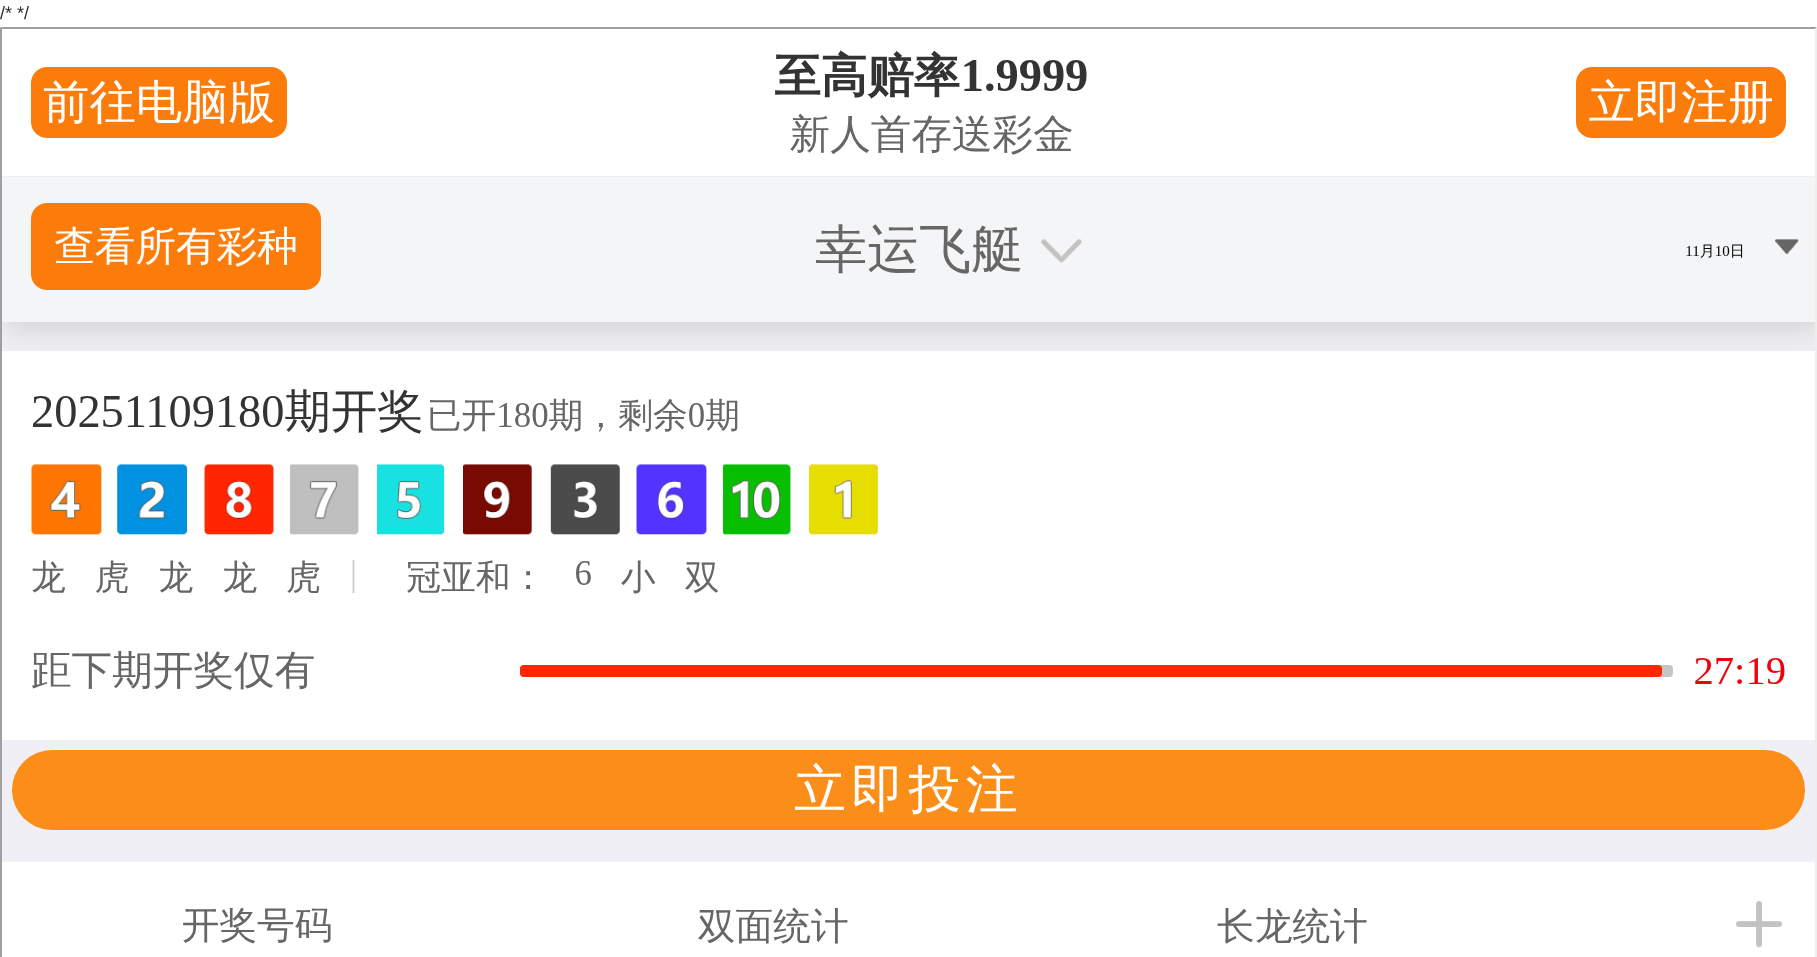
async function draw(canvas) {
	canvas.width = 1817;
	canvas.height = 957;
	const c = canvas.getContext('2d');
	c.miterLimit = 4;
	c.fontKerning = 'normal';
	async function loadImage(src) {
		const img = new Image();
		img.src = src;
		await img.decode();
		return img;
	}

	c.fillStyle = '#fff';
	c.fillRect(0, 0, 1817, 957);
	c.font = '18px Liberation Sans';
	c.fillStyle = '#2f2f2f';
	c.fillText('/* */', 0, 19);
	c.fillStyle = '#9f9f9f';
	c.beginPath();
	c.moveTo(0, 27);
	c.lineTo(1817, 27);
	c.lineTo(1815, 29);
	c.lineTo(2, 29);
	c.closePath();
	c.fill();
	c.beginPath();
	c.moveTo(0, 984);
	c.lineTo(0, 27);
	c.lineTo(2, 29);
	c.lineTo(2, 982);
	c.closePath();
	c.fill();
	c.drawImage(await loadImage('img1.png'), 2, 50, 1813, 898);
	c.fillStyle = '#eee';
	c.beginPath();
	c.moveTo(1817, 27);
	c.lineTo(1817, 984);
	c.lineTo(1815, 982);
	c.lineTo(1815, 29);
	c.closePath();
	c.fill();
}

draw(document.querySelector('canvas'));
